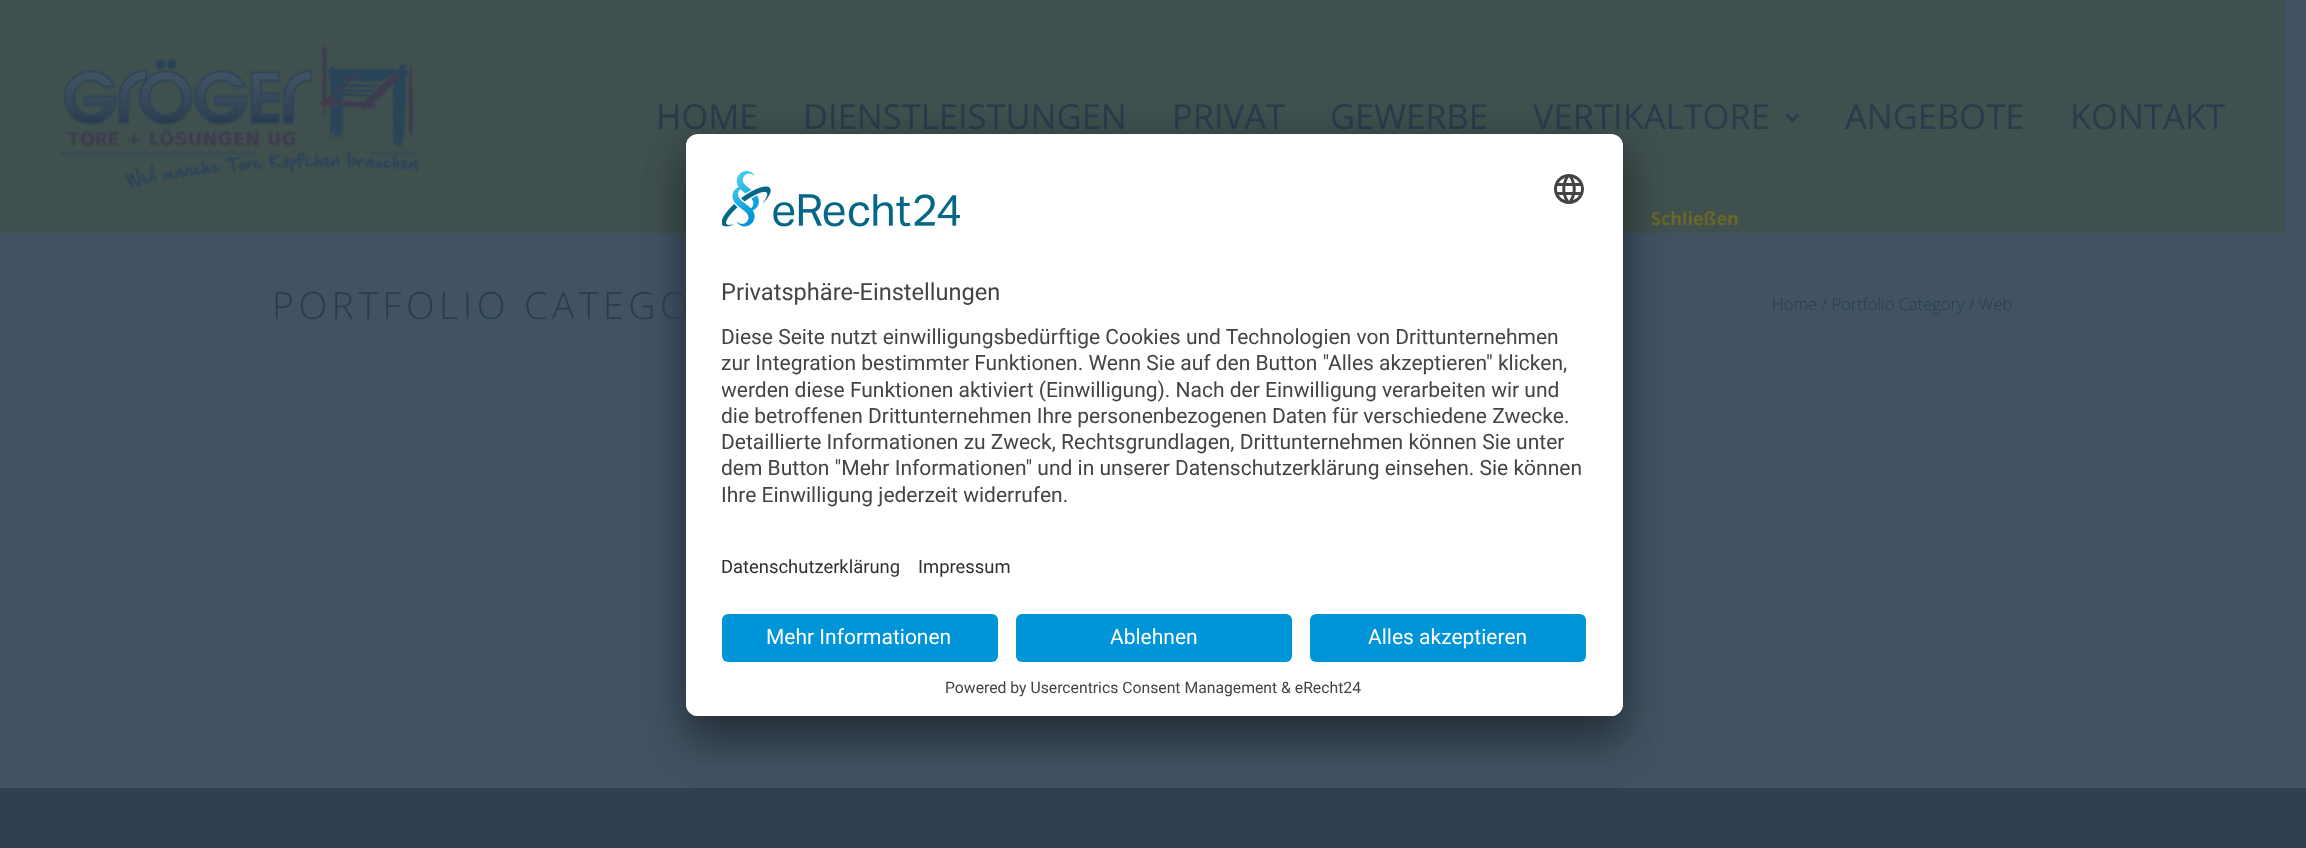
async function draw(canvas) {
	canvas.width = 2306;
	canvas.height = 848;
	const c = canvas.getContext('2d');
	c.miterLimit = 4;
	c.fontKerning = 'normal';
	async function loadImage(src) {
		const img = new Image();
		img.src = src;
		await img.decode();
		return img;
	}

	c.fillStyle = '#415363';
	c.fillRect(0, 0, 2306, 848);
	c.fillStyle = '#3f504e';
	c.fillRect(0, 0, 2285, 233);
	c.drawImage(await loadImage('img1.png'), 60, 46, 359, 142);
	c.font = '34.5px Open Sans';
	c.fillStyle = '#2a3c4c';
	for (const [text, x, y] of [
		['HOME', 656, 129],
		['DIENSTLEISTUNGEN', 803, 129],
		['PRIVAT', 1172, 129],
		['GEWERBE', 1330, 129],
		['VERTIKALTORE', 1533, 129],
	]) {
		c.fillText(text, x, y);
	}
	c.save();
	c.beginPath();
	c.rect(1785, 114, 15, 9);
	c.clip();
	c.beginPath();
	c.moveTo(1797.5, 115);
	c.lineTo(1792.5, 120.5);
	c.lineTo(1787, 115);
	c.strokeStyle = '#2a3c4c';
	c.lineWidth = 3;
	c.lineCap = 'round';
	c.stroke();
	c.restore();
	c.fillText('ANGEBOTE', 1845, 129);
	c.fillText('KONTAKT', 2070, 129);
	c.font = 'bold 18px Open Sans';
	c.fillStyle = '#69672a';
	c.fillText('Schließen', 1651, 225);
	c.fillStyle = '#2f4151';
	c.fillRect(0, 788, 2306, 60);
	c.fillStyle = '#0000004d';
	c.filter = 'blur(21px)';
	c.beginPath();
	c.roundRect(686, 164, 937, 582, 12);
	c.fill();
	c.filter = 'none';
	c.fillStyle = '#00000038';
	c.filter = 'blur(19.5px)';
	c.beginPath();
	c.roundRect(686, 141, 937, 582, 12);
	c.fill();
	c.filter = 'none';
	c.letterSpacing = '4.5px';
	c.font = '300 37.5px Open Sans';
	c.fillStyle = '#2a3c4c';
	c.fillText('PORTFOLIO CATEGO', 272, 319);
	c.fillStyle = '#fff';
	c.beginPath();
	c.roundRect(686, 134, 937, 582, 12);
	c.fill();
	c.save();
	c.beginPath();
	c.roundRect(686, 134, 937, 582, 12);
	c.clip();
	c.beginPath();
	c.roundRect(686, 134, 937, 468, [12, 12, 0, 0]);
	c.clip();
	c.fillRect(686, 135, 937, 467);
	c.restore();
	c.drawImage(await loadImage('img2.png'), 722, 171, 238, 56);
	c.drawImage(await loadImage('img3.png'), 1554, 174, 30, 30);
	c.letterSpacing = '0px';
	c.font = '23.6px Roboto';
	c.fillStyle = '#444';
	c.fillText('Privatsphäre-Einstellungen', 721, 300);
	c.font = '21px Roboto';
	c.fillText('Diese Seite nutzt einwilligungsbedürftige Cookies und Technologien von Drittunternehmen', 721, 344);
	c.save();
	c.beginPath();
	c.rect(722, 318, 865, 197);
	c.clip();
	for (const [text, x, y] of [
		['zur Integration bestimmter Funktionen. Wenn Sie auf den Button "Alles akzeptieren" klicken,', 721, 370],
		['werden diese Funktionen aktiviert (Einwilligung). Nach der Einwilligung verarbeiten wir und', 721, 397],
		['die betroffenen Drittunternehmen Ihre personenbezogenen Daten für verschiedene Zwecke.', 721, 423],
	]) {
		c.fillText(text, x, y);
	}
	c.restore();
	c.fillText('Detaillierte Informationen zu Zweck, Rechtsgrundlagen, Drittunternehmen können Sie unter', 721, 449);
	c.save();
	c.beginPath();
	c.rect(722, 318, 865, 197);
	c.clip();
	c.fillText('dem Button "Mehr Informationen" und in unserer Datenschutzerklärung einsehen. Sie können', 721, 475);
	c.restore();
	c.fillText('Ihre Einwilligung jederzeit widerrufen.', 721, 502);
	c.font = '18.4px Roboto';
	c.fillStyle = '#303030';
	c.fillText('Datenschutzerklärung', 721, 573);
	c.fillText('Impressum', 918, 573);
	c.fillStyle = '#fff';
	c.beginPath();
	c.roundRect(686, 602, 937, 114, [0, 0, 12, 12]);
	c.fill();
	c.fillStyle = '#0094d8';
	c.beginPath();
	c.roundRect(722, 614, 276, 48, 6);
	c.fill();
	c.font = '21px Roboto';
	c.fillStyle = '#fff';
	c.fillText('Mehr Informationen', 766, 644);
	c.fillStyle = '#0094d8';
	c.beginPath();
	c.roundRect(1016, 614, 276, 48, 6);
	c.fill();
	c.fillStyle = '#fff';
	c.fillText('Ablehnen', 1110, 644);
	c.fillStyle = '#0094d8';
	c.beginPath();
	c.roundRect(1310, 614, 276, 48, 6);
	c.fill();
	c.fillStyle = '#fff';
	c.fillText('Alles akzeptieren', 1368, 644);
	c.font = '15.75px Roboto';
	c.fillStyle = '#444';
	c.fillText('Powered by Usercentrics Consent Management & eRecht24', 945, 693);
	c.font = '300 16.5px Open Sans';
	c.fillStyle = '#2a3c4c';
	c.fillText('Home / Portfolio Category / Web', 1772, 310);
}

draw(document.querySelector('canvas'));
